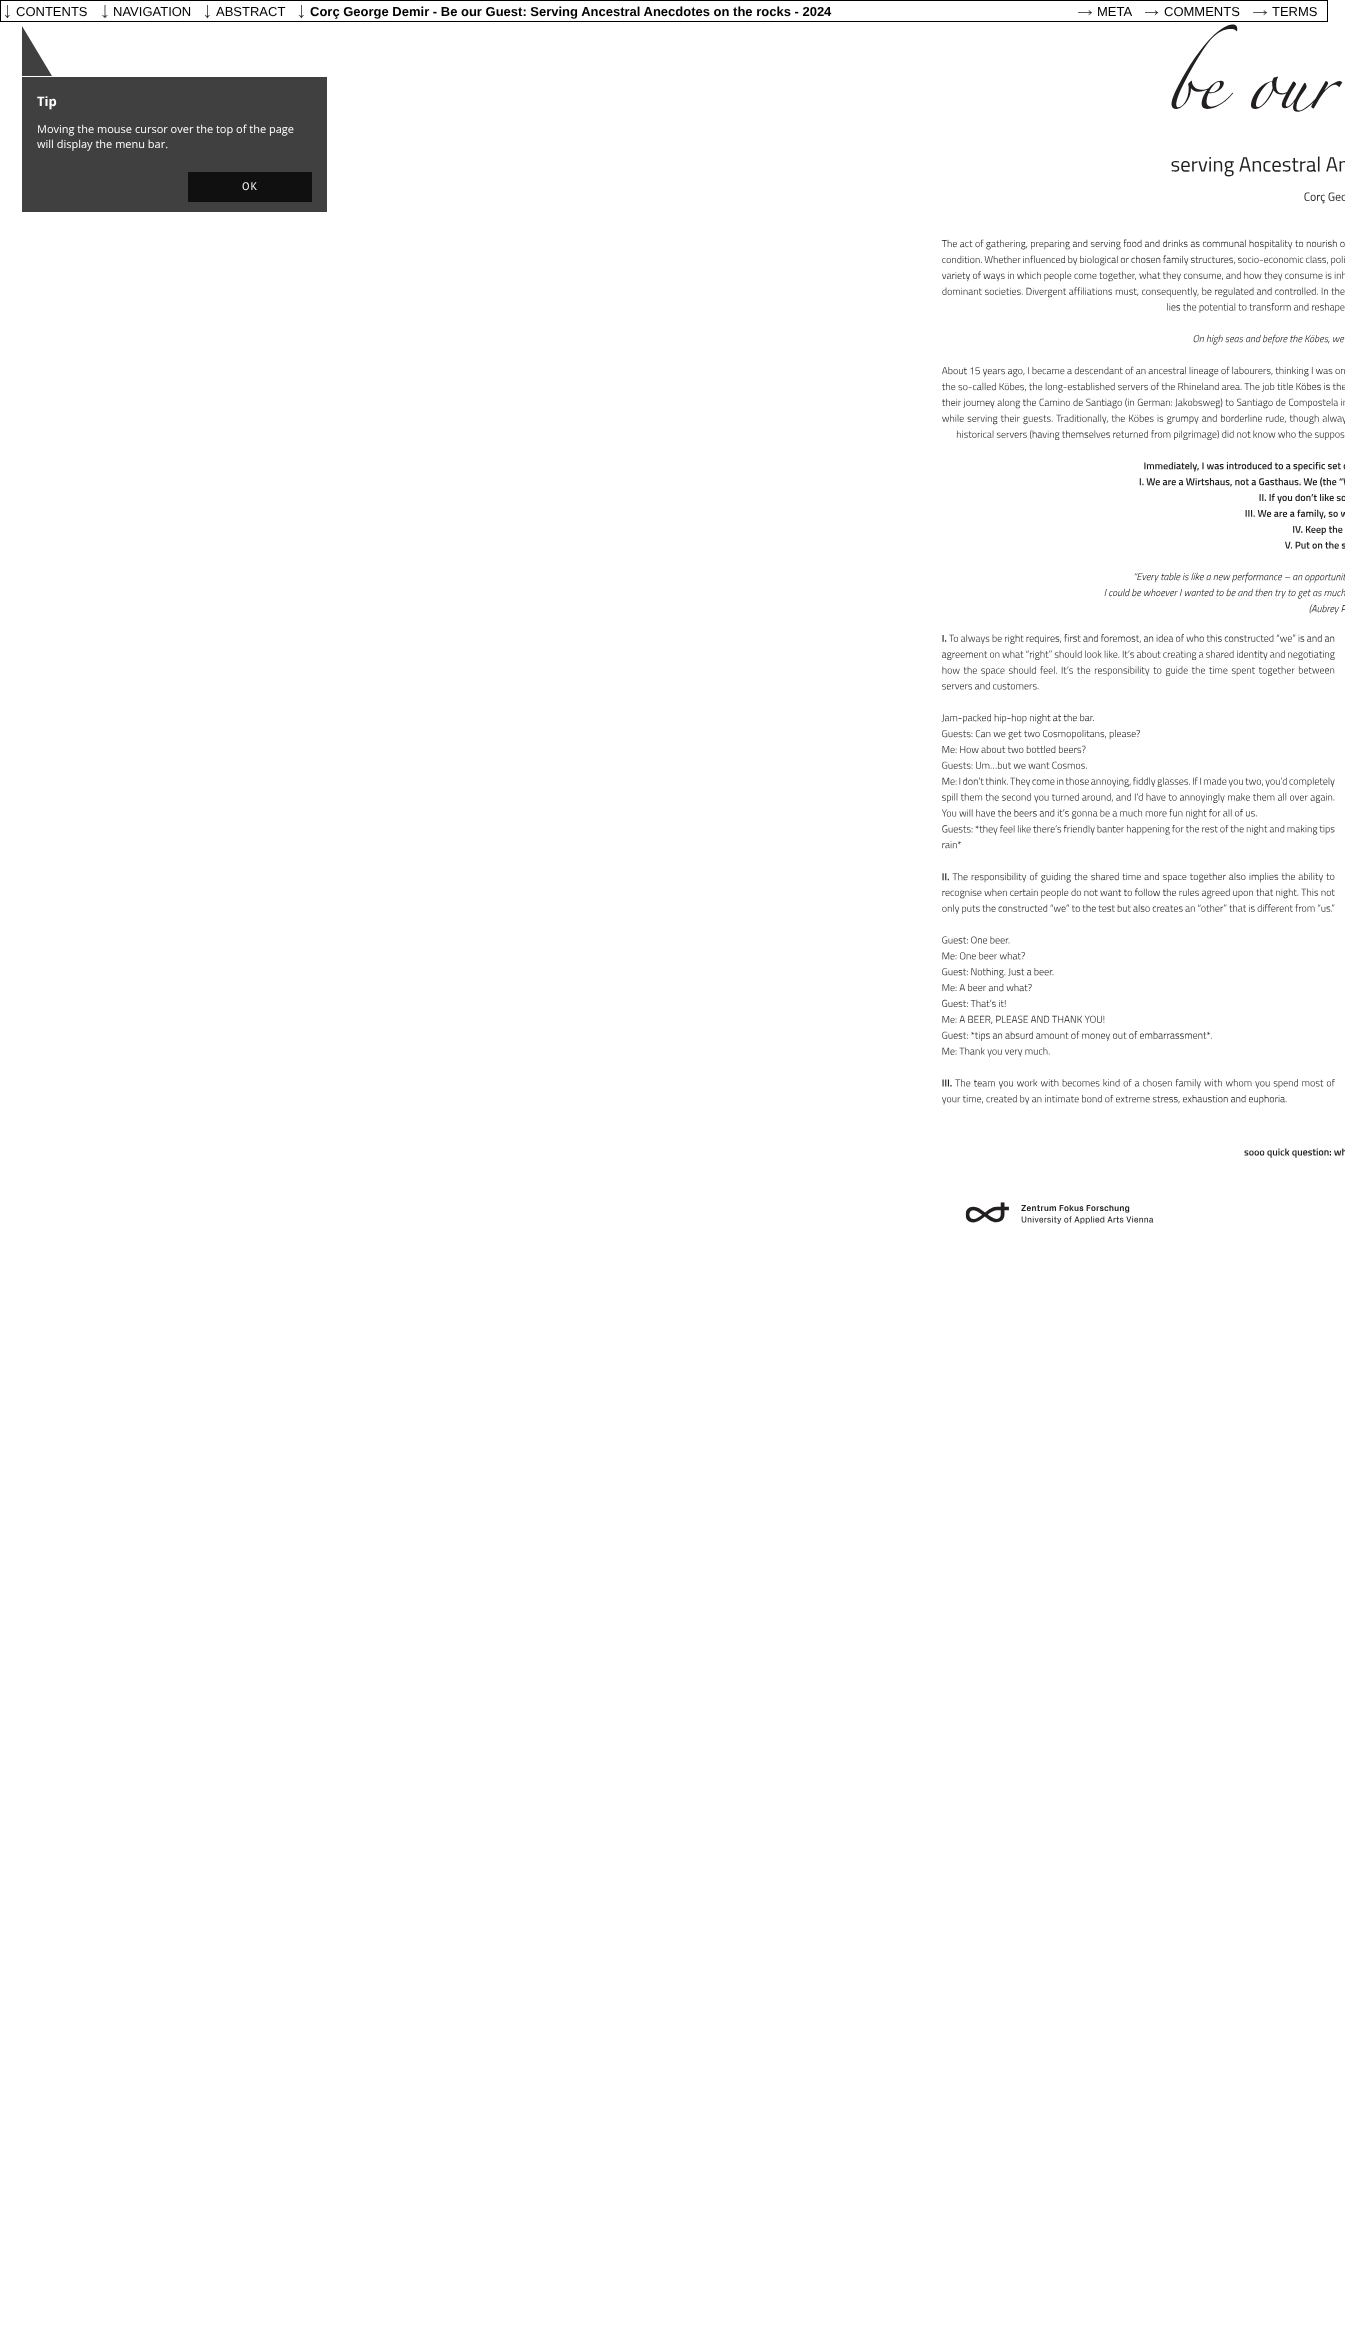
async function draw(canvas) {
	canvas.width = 1345;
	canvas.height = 2352;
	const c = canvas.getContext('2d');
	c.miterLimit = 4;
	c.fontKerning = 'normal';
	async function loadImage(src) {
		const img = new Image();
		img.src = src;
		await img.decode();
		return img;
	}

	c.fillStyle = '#fff';
	c.fillRect(0, 0, 1345, 2352);
	c.strokeStyle = '#000';
	c.strokeRect(0.5, 0.5, 1327, 21);
	c.drawImage(await loadImage('img1.png'), 4, 5, 6, 14);
	c.font = '13px Liberation Sans';
	c.fillStyle = '#000';
	c.fillText('CONTENTS', 16, 16);
	c.drawImage(await loadImage('img2.png'), 101, 5, 7, 14);
	c.fillText('NAVIGATION', 113, 16);
	c.drawImage(await loadImage('img1.png'), 204, 5, 6, 14);
	c.fillText('ABSTRACT', 216, 16);
	c.drawImage(await loadImage('img1.png'), 298, 5, 6, 14);
	c.font = 'bold 13px Liberation Sans';
	c.fillText('Corç George Demir - Be our Guest: Serving Ancestral Anecdotes on the rocks - 2024', 310, 16);
	c.drawImage(await loadImage('img3.png'), 1078, 10, 15, 6);
	c.font = '13px Liberation Sans';
	c.fillText('META', 1097, 16);
	c.drawImage(await loadImage('img4.png'), 1145, 10, 14, 6);
	c.fillText('COMMENTS', 1164, 16);
	c.drawImage(await loadImage('img3.png'), 1253, 10, 15, 6);
	c.fillText('TERMS', 1272, 16);
	c.fillStyle = '#404040';
	c.fillRect(22, 77, 305, 135);
	c.beginPath();
	c.moveTo(52, 76);
	c.lineTo(22, 76);
	c.lineTo(22, 26);
	c.closePath();
	c.fill();
	c.font = 'bold 13px Open Sans';
	c.fillStyle = '#fff';
	c.fillText('Tip', 37, 106);
	c.font = '11px Open Sans';
	c.fillText('Moving the mouse cursor over the top of the page', 37, 133);
	c.fillText('will display the menu bar.', 37, 148);
	c.fillStyle = '#101010';
	c.fillRect(188, 172, 124, 30);
	c.letterSpacing = '1px';
	c.font = '11px PT Sans';
	c.fillStyle = '#fff';
	c.fillText('OK', 242, 190);
	c.drawImage(await loadImage('img5.png'), 941, 24, 404, 1200);
}

draw(document.querySelector('canvas'));
